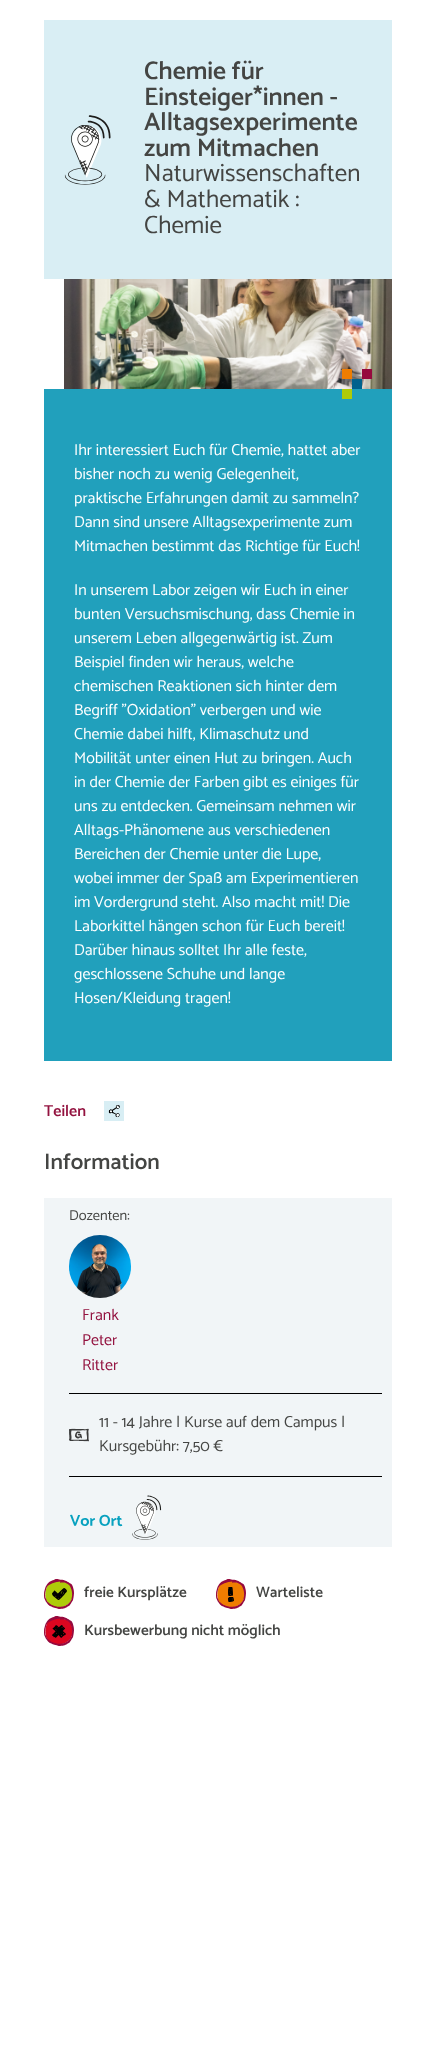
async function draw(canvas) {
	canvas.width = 436;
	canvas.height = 2058;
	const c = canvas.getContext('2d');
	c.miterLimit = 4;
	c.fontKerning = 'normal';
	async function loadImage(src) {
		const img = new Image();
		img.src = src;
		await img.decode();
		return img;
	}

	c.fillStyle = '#fff';
	c.fillRect(0, 0, 436, 2058);
	c.fillStyle = '#d9eef4';
	c.fillRect(44, 20, 348, 259);
	c.drawImage(await loadImage('img1.png'), 64, 115, 47, 70);
	c.font = '100 25.5px Catamaran';
	c.fillStyle = '#444543';
	for (const [text, x, y] of [
		['Chemie für', 144, 79],
		['Einsteiger*innen -', 144, 105],
		['Alltagsexperimente', 144, 130],
		['zum Mitmachen', 144, 156],
	]) {
		c.fillText(text, x, y);
	}
	c.font = '100 25px "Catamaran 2"';
	for (const [text, x, y] of [
		['Naturwissenschaften', 144, 181],
		['& Mathematik :', 144, 207],
		['Chemie', 144, 233],
	]) {
		c.fillText(text, x, y);
	}
	c.drawImage(await loadImage('img2.png'), 64, 279, 328, 110);
	for (const [x, y, w, h, color] of [
		[362, 369, 10, 10, '#96093e'],
		[342, 369, 10, 10, '#ef7d00'],
		[352, 379, 10, 10, '#00628e'],
		[44, 389, 348, 672, '#21a0bc'],
		[342, 389, 10, 10, '#aecb09'],
	]) {
		c.fillStyle = color;
		c.fillRect(x, y, w, h);
	}
	c.font = '100 16px "Catamaran 2"';
	c.fillStyle = '#fff';
	for (const [text, x, y] of [
		['Ihr interessiert Euch für Chemie, hattet aber', 74, 455],
		['bisher noch zu wenig Gelegenheit,', 74, 479],
		['praktische Erfahrungen damit zu sammeln?', 74, 503],
		['Dann sind unsere Alltagsexperimente zum', 74, 527],
		['Mitmachen bestimmt das Richtige für Euch!', 74, 551],
		['In unserem Labor zeigen wir Euch in einer', 74, 595],
		['bunten Versuchsmischung, dass Chemie in', 74, 619],
		['unserem Leben allgegenwärtig ist. Zum', 74, 643],
		['Beispiel finden wir heraus, welche', 74, 667],
		['chemischen Reaktionen sich hinter dem', 74, 691],
		['Begriff "Oxidation" verbergen und wie', 74, 715],
		['Chemie dabei hilft, Klimaschutz und', 74, 739],
		['Mobilität unter einen Hut zu bringen. Auch', 74, 763],
		['in der Chemie der Farben gibt es einiges für', 74, 787],
		['uns zu entdecken. Gemeinsam nehmen wir', 74, 811],
		['Alltags-Phänomene aus verschiedenen', 74, 835],
		['Bereichen der Chemie unter die Lupe,', 74, 859],
		['wobei immer der Spaß am Experimentieren', 74, 883],
		['im Vordergrund steht. Also macht mit! Die', 74, 907],
		['Laborkittel hängen schon für Euch bereit!', 74, 931],
		['Darüber hinaus solltet Ihr alle feste,', 74, 955],
		['geschlossene Schuhe und lange', 74, 979],
		['Hosen/Kleidung tragen!', 74, 1003],
	]) {
		c.fillText(text, x, y);
	}
	c.drawImage(await loadImage('img3.png'), 104, 1101, 20, 20);
	c.font = '100 16px Catamaran';
	c.fillStyle = '#93123f';
	c.fillText('Teilen', 44, 1116);
	c.font = '100 22.5px Catamaran';
	c.fillStyle = '#444543';
	c.fillText('Information', 44, 1169);
	c.fillStyle = '#f1f5f7';
	c.fillRect(44, 1198, 348, 349);
	c.fillStyle = '#000';
	c.fillRect(69, 1393, 313, 1);
	c.font = '100 14.5px "Catamaran 2"';
	c.fillStyle = '#444543';
	c.fillText('Dozenten:', 69, 1220);
	c.drawImage(await loadImage('img4.png'), 69, 1235, 62, 63);
	c.font = '100 16px "Catamaran 2"';
	c.fillStyle = '#93123f';
	for (const [text, x, y] of [
		['Frank', 82, 1320],
		['Peter', 82, 1345],
		['Ritter', 82, 1370],
	]) {
		c.fillText(text, x, y);
	}
	c.fillStyle = '#000';
	c.fillRect(69, 1476, 313, 1);
	c.drawImage(await loadImage('img5.png'), 69, 1428, 20, 14);
	c.fillStyle = '#444543';
	c.fillText('11 - 14 Jahre | Kurse auf dem Campus |', 99, 1427);
	c.fillText('Kursgebühr: 7,50 €', 99, 1451);
	c.drawImage(await loadImage('img6.png'), 70, 1495, 92, 45);
	c.drawImage(await loadImage('img7.png'), 44, 1579, 30, 30);
	c.font = '100 15.25px Catamaran';
	c.fillText('freie Kursplätze', 84, 1597);
	c.drawImage(await loadImage('img8.png'), 216, 1579, 30, 30);
	c.fillText('Warteliste', 256, 1597);
	c.drawImage(await loadImage('img9.png'), 44, 1616, 30, 30);
	c.fillText('Kursbewerbung nicht möglich', 84, 1635);
}

draw(document.querySelector('canvas'));
